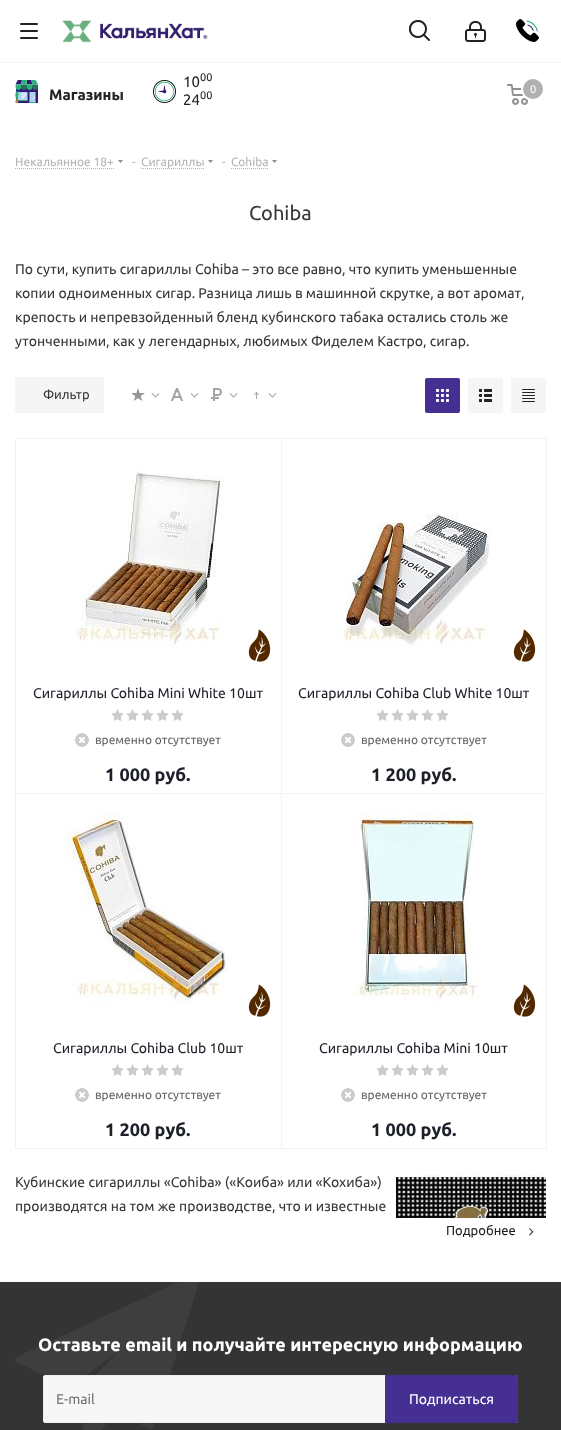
async function draw(canvas) {
	canvas.width = 561;
	canvas.height = 1430;
	const c = canvas.getContext('2d');
	c.miterLimit = 4;
	c.fontKerning = 'normal';
	async function loadImage(src) {
		const img = new Image();
		img.src = src;
		await img.decode();
		return img;
	}

	c.fillStyle = '#fff';
	c.fillRect(0, 0, 561, 1430);
	c.fillStyle = '#f5f5f5';
	c.fillRect(0, 62, 561, 1);
	c.drawImage(await loadImage('img1.png'), 20, 23, 18, 16);
	c.drawImage(await loadImage('img2.png'), 62, 20, 146, 23);
	c.drawImage(await loadImage('img3.png'), 409, 20, 21, 21);
	c.drawImage(await loadImage('img4.png'), 465, 21, 21, 21);
	c.drawImage(await loadImage('img5.png'), 516, 19, 23, 23);
	c.drawImage(await loadImage('img6.png'), 15, 80, 23, 23);
	c.font = 'bold 15px Ubuntu';
	c.fillStyle = '#222';
	c.fillText('Магазины', 49, 100);
	c.drawImage(await loadImage('img7.png'), 153, 80, 23, 23);
	c.font = '15px Ubuntu';
	c.fillText('10', 183, 87);
	c.font = '11px Ubuntu';
	c.fillText('00', 200, 81);
	c.font = '15px Ubuntu';
	c.fillText('24', 183, 105);
	c.font = '11px Ubuntu';
	c.fillText('00', 200, 99);
	c.drawImage(await loadImage('img8.png'), 507, 84, 21, 21);
	c.beginPath();
	c.arc(533, 89, 11, 0, 2 * Math.PI);
	c.strokeStyle = '#fff';
	c.lineWidth = 2;
	c.stroke();
	c.fillStyle = '#b0b0b0';
	c.beginPath();
	c.arc(533, 89, 10, 0, 2 * Math.PI);
	c.fill();
	c.fillStyle = '#fff';
	c.fillText('0', 530, 93);
	c.font = '12px Ubuntu';
	c.fillStyle = '#b6b5b5';
	c.fillText('Некальянное 18+', 15, 166);
	c.beginPath();
	c.moveTo(15, 168.5);
	c.lineTo(114, 168.5);
	c.strokeStyle = '#b4b4b4';
	c.lineWidth = 1;
	c.setLineDash([1, 1]);
	c.stroke();
	c.drawImage(await loadImage('img9.png'), 118, 160, 5, 3);
	c.fillText('-', 132, 166);
	c.beginPath();
	c.moveTo(141, 168.5);
	c.lineTo(204, 168.5);
	c.stroke();
	c.fillText('Сигариллы', 141, 166);
	c.drawImage(await loadImage('img9.png'), 208, 160, 5, 3);
	c.fillText('-', 222, 166);
	c.fillText('Cohiba', 231, 166);
	c.beginPath();
	c.moveTo(231, 168.5);
	c.lineTo(268, 168.5);
	c.stroke();
	c.drawImage(await loadImage('img9.png'), 272, 160, 5, 3);
	c.font = '20px Ubuntu';
	c.fillStyle = '#383838';
	c.fillText('Cohiba', 249, 220);
	c.font = '14px Ubuntu';
	for (const [text, x, y] of [
		['По сути, купить сигариллы Cohiba – это все равно, что купить уменьшенные', 15, 274],
		['копии одноименных сигар. Разница лишь в машинной скрутке, а вот аромат,', 15, 298],
		['крепость и непревзойденный бленд кубинского табака остались столь же', 15, 322],
		['утонченными, как у легендарных, любимых Фиделем Кастро, сигар.', 15, 346],
	]) {
		c.fillText(text, x, y);
	}
	c.fillStyle = '#f5f5f5';
	c.beginPath();
	c.roundRect(15, 377, 89, 36, 2);
	c.fill();
	c.font = '13px Ubuntu';
	c.fillStyle = '#383838';
	c.fillText('Фильтр', 43, 399);
	c.drawImage(await loadImage('img10.png'), 132, 388, 15, 13);
	c.drawImage(await loadImage('img11.png'), 151, 393, 9, 5);
	c.drawImage(await loadImage('img12.png'), 171, 388, 12, 13);
	c.drawImage(await loadImage('img11.png'), 190, 393, 9, 5);
	c.drawImage(await loadImage('img13.png'), 211, 388, 11, 13);
	c.drawImage(await loadImage('img11.png'), 229, 393, 9, 5);
	c.drawImage(await loadImage('img14.png'), 254, 392, 5, 7);
	c.drawImage(await loadImage('img11.png'), 268, 393, 9, 5);
	c.fillStyle = '#452f93';
	c.beginPath();
	c.roundRect(425, 378, 35, 35, 2);
	c.fill();
	c.drawImage(await loadImage('img15.png'), 436, 389, 13, 13);
	c.fillStyle = '#f5f5f5';
	c.beginPath();
	c.roundRect(468, 378, 35, 35, 2);
	c.fill();
	c.drawImage(await loadImage('img16.png'), 479, 389, 13, 13);
	c.beginPath();
	c.roundRect(511, 378, 35, 35, 2);
	c.fill();
	c.drawImage(await loadImage('img17.png'), 522, 389, 13, 13);
	c.strokeStyle = '#f2f2f2';
	c.setLineDash([]);
	c.strokeRect(15.5, 438.5, 266, 355);
	c.drawImage(await loadImage('img18.png'), 74, 467, 150, 182);
	c.drawImage(await loadImage('img19.png'), 248, 629, 23, 33);
	c.font = '14px Ubuntu';
	c.fillStyle = '#1d2029';
	c.fillText('Сигариллы Cohiba Mini White 10шт', 33, 698);
	c.drawImage(await loadImage('img20.png'), 111, 709, 13, 12);
	c.drawImage(await loadImage('img20.png'), 126, 709, 13, 12);
	c.drawImage(await loadImage('img20.png'), 141, 709, 13, 12);
	c.drawImage(await loadImage('img20.png'), 156, 709, 13, 12);
	c.drawImage(await loadImage('img20.png'), 171, 709, 13, 12);
	c.drawImage(await loadImage('img21.png'), 75, 733, 14, 14);
	c.font = '12px Ubuntu';
	c.fillStyle = '#666';
	c.fillText('временно отсутствует', 95, 744);
	c.font = 'bold 18px Ubuntu';
	c.fillStyle = '#1d2029';
	c.fillText('1 000 руб.', 105, 781);
	c.strokeRect(281.5, 438.5, 265, 355);
	c.drawImage(await loadImage('img22.png'), 340, 514, 150, 135);
	c.drawImage(await loadImage('img19.png'), 513, 629, 23, 33);
	c.font = '14px Ubuntu';
	c.fillText('Сигариллы Cohiba Club White 10шт', 298, 698);
	c.drawImage(await loadImage('img20.png'), 376, 709, 13, 12);
	c.drawImage(await loadImage('img20.png'), 391, 709, 13, 12);
	c.drawImage(await loadImage('img20.png'), 406, 709, 13, 12);
	c.drawImage(await loadImage('img20.png'), 421, 709, 13, 12);
	c.drawImage(await loadImage('img20.png'), 436, 709, 13, 12);
	c.drawImage(await loadImage('img21.png'), 341, 733, 14, 14);
	c.font = '12px Ubuntu';
	c.fillStyle = '#666';
	c.fillText('временно отсутствует', 361, 744);
	c.font = 'bold 18px Ubuntu';
	c.fillStyle = '#1d2029';
	c.fillText('1 200 руб.', 371, 781);
	c.strokeRect(15.5, 793.5, 266, 355);
	c.drawImage(await loadImage('img23.png'), 64, 813, 167, 192);
	c.drawImage(await loadImage('img19.png'), 248, 984, 23, 33);
	c.font = '14px Ubuntu';
	c.fillText('Сигариллы Cohiba Club 10шт', 53, 1053);
	c.drawImage(await loadImage('img20.png'), 111, 1064, 13, 12);
	c.drawImage(await loadImage('img20.png'), 126, 1064, 13, 12);
	c.drawImage(await loadImage('img20.png'), 141, 1064, 13, 12);
	c.drawImage(await loadImage('img20.png'), 156, 1064, 13, 12);
	c.drawImage(await loadImage('img20.png'), 171, 1064, 13, 12);
	c.drawImage(await loadImage('img21.png'), 75, 1088, 14, 14);
	c.font = '12px Ubuntu';
	c.fillStyle = '#666';
	c.fillText('временно отсутствует', 95, 1099);
	c.font = 'bold 18px Ubuntu';
	c.fillStyle = '#1d2029';
	c.fillText('1 200 руб.', 105, 1136);
	c.strokeRect(281.5, 793.5, 265, 355);
	c.drawImage(await loadImage('img24.png'), 347, 813, 131, 192);
	c.drawImage(await loadImage('img19.png'), 513, 984, 23, 33);
	c.font = '14px Ubuntu';
	c.fillText('Сигариллы Cohiba Mini 10шт', 319, 1053);
	c.drawImage(await loadImage('img20.png'), 376, 1064, 13, 12);
	c.drawImage(await loadImage('img20.png'), 391, 1064, 13, 12);
	c.drawImage(await loadImage('img20.png'), 406, 1064, 13, 12);
	c.drawImage(await loadImage('img20.png'), 421, 1064, 13, 12);
	c.drawImage(await loadImage('img20.png'), 436, 1064, 13, 12);
	c.drawImage(await loadImage('img21.png'), 341, 1088, 14, 14);
	c.font = '12px Ubuntu';
	c.fillStyle = '#666';
	c.fillText('временно отсутствует', 361, 1099);
	c.font = 'bold 18px Ubuntu';
	c.fillStyle = '#1d2029';
	c.fillText('1 000 руб.', 371, 1136);
	c.font = '14px Ubuntu';
	c.fillStyle = '#383838';
	c.fillText('Кубинские сигариллы «Cohiba» («Коиба» или «Кохиба»)', 15, 1187);
	c.drawImage(await loadImage('img25.png'), 396, 1175, 150, 43);
	c.fillText('производятся на том же производстве, что и известные', 15, 1211);
	c.font = '13px Ubuntu';
	c.fillStyle = '#222';
	c.fillText('Подробнее', 446, 1235);
	c.drawImage(await loadImage('img26.png'), 529, 1228, 5, 8);
	c.fillStyle = '#343435';
	c.fillRect(0, 1282, 561, 148);
	c.drawImage(await loadImage('img27.png'), 15, 1282, 184, 148);
	c.font = 'bold 18px Ubuntu';
	c.fillStyle = '#fff';
	c.fillText('Оставьте email и получайте интересную информацию', 38, 1351);
	c.fillStyle = '#f7f7f7';
	c.beginPath();
	c.roundRect(43.5, 1375.5, 474, 47, 1.5);
	c.fill();
	c.strokeStyle = '#eee';
	c.stroke();
	c.font = '14px Ubuntu';
	c.fillStyle = '#757575';
	c.fillText('E-mail', 56, 1404);
	c.fillStyle = '#452f93';
	c.beginPath();
	c.roundRect(385.5, 1375.5, 132, 47, [0, 1.5, 1.5, 0]);
	c.fill();
	c.strokeStyle = '#452f93';
	c.stroke();
	c.fillStyle = '#fff';
	c.fillText('Подписаться', 409, 1404);
}

draw(document.querySelector('canvas'));
